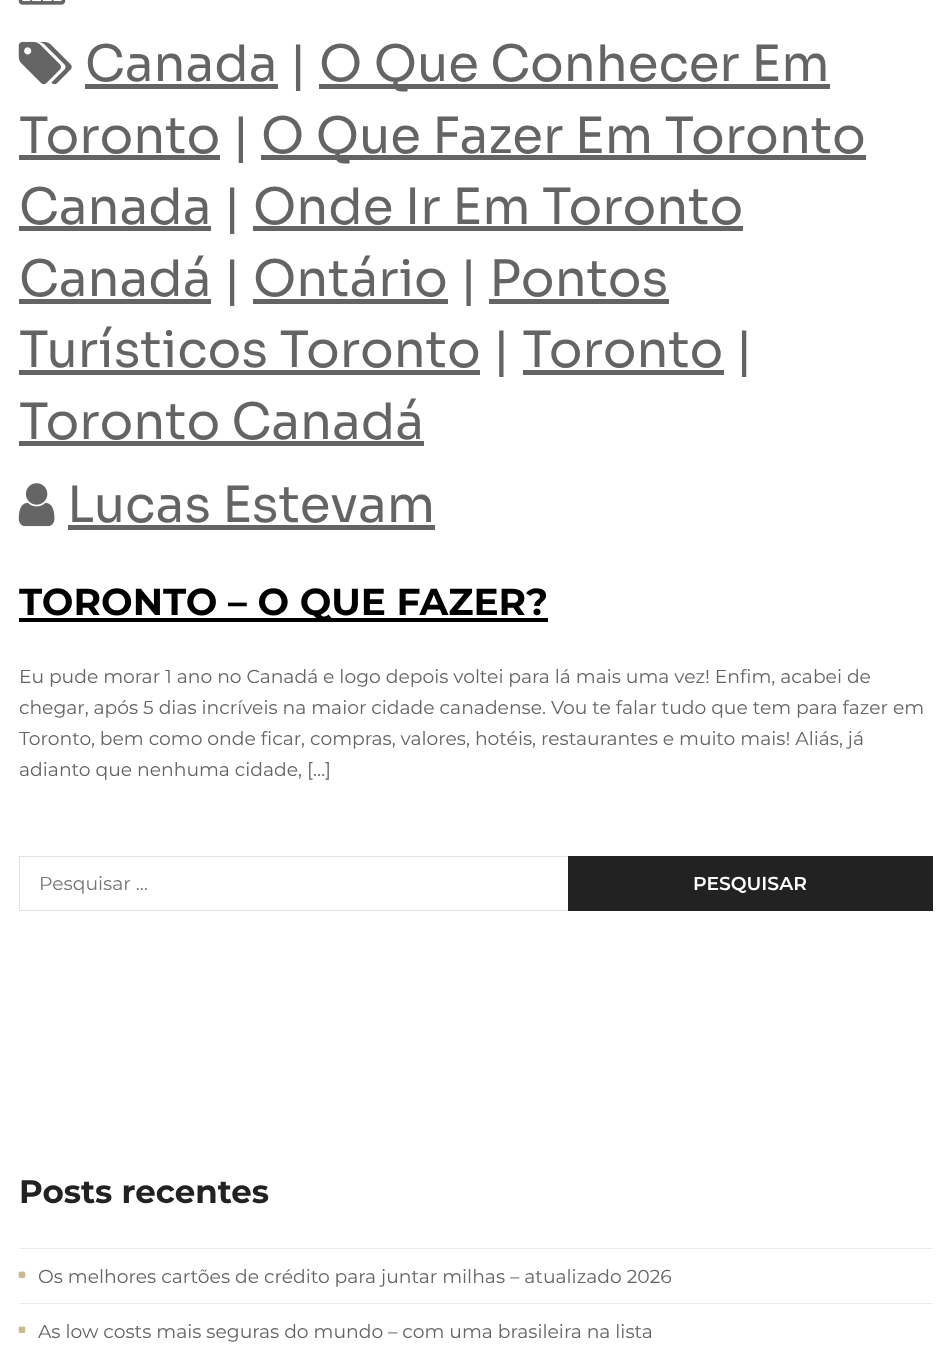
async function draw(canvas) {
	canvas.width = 951;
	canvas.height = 1346;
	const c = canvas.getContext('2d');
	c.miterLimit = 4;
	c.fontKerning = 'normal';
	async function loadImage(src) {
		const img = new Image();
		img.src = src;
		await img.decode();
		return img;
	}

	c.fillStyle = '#fff';
	c.fillRect(0, 0, 951, 1346);
	c.drawImage(await loadImage('img1.png'), 18, 0, 48, 5);
	c.drawImage(await loadImage('img2.png'), 18, 41, 54, 44);
	c.fillStyle = '#646464';
	c.fillRect(85, 84, 193, 5);
	c.font = '50px Sora';
	c.fillText('Canada |', 85, 81);
	c.fillRect(319, 84, 511, 5);
	c.fillText('O Que Conhecer Em', 319, 81);
	c.fillRect(19, 155, 201, 5);
	c.fillText('Toronto |', 19, 153);
	c.fillRect(261, 155, 605, 5);
	c.fillText('O Que Fazer Em Toronto', 261, 153);
	c.fillRect(19, 226, 192, 5);
	c.fillText('Canada | Onde Ir Em Toronto', 19, 224);
	c.fillRect(19, 299, 192, 5);
	c.fillText('Canadá | Ontário | Pontos', 19, 296);
	for (const [x, y, w, h, color] of [
		[253, 226, 490, 5, '#646464'],
		[253, 299, 195, 5, '#646464'],
		[19, 370, 461, 5, '#646464'],
	]) {
		c.fillStyle = color;
		c.fillRect(x, y, w, h);
	}
	c.fillText('Turísticos Toronto | Toronto |', 19, 367);
	c.fillRect(489, 299, 180, 5);
	c.fillRect(523, 370, 201, 5);
	c.fillText('Toronto Canadá', 19, 439);
	c.fillRect(19, 441, 405, 5);
	c.drawImage(await loadImage('img3.png'), 18, 483, 37, 44);
	c.fillText('Lucas Estevam', 67, 522);
	c.fillRect(68, 525, 367, 5);
	c.fillStyle = '#000';
	c.fillRect(19, 618, 529, 4);
	c.font = 'bold 37.5px Montserrat';
	c.fillText('TORONTO – O QUE FAZER?', 19, 615);
	c.font = '100 18.75px Montserrat';
	c.fillStyle = '#646464';
	for (const [text, x, y] of [
		['Eu pude morar 1 ano no Canadá e logo depois voltei para lá mais uma vez! Enfim, acabei de', 19, 683],
		['chegar, após 5 dias incríveis na maior cidade canadense. Vou te falar tudo que tem para fazer em', 19, 714],
		['Toronto, bem como onde ficar, compras, valores, hotéis, restaurantes e muito mais! Aliás, já', 19, 745],
		['adianto que nenhuma cidade, […]', 19, 776],
	]) {
		c.fillText(text, x, y);
	}
	c.strokeStyle = '#e2e2e2';
	c.strokeRect(19.5, 856.5, 569, 54);
	c.fillStyle = '#757575';
	c.fillText('Pesquisar …', 39, 890);
	c.fillStyle = '#222';
	c.fillRect(568, 856, 365, 55);
	c.font = '600 18.75px Montserrat';
	c.fillStyle = '#fff';
	c.fillText('PESQUISAR', 693, 890);
	c.font = 'bold 32.5px Montserrat';
	c.fillStyle = '#222';
	c.fillText('Posts recentes', 19, 1203);
	c.fillStyle = '#e5ecef';
	c.fillRect(19, 1248, 914, 1);
	c.fillRect(19, 1303, 914, 1);
	c.drawImage(await loadImage('img4.png'), 18, 1271, 8, 8);
	c.font = '100 18.75px Montserrat';
	c.fillStyle = '#646464';
	c.fillText('Os melhores cartões de crédito para juntar milhas – atualizado 2026', 38, 1283);
	c.drawImage(await loadImage('img4.png'), 18, 1326, 8, 8);
	c.fillText('As low costs mais seguras do mundo – com uma brasileira na lista', 38, 1338);
}

draw(document.querySelector('canvas'));
